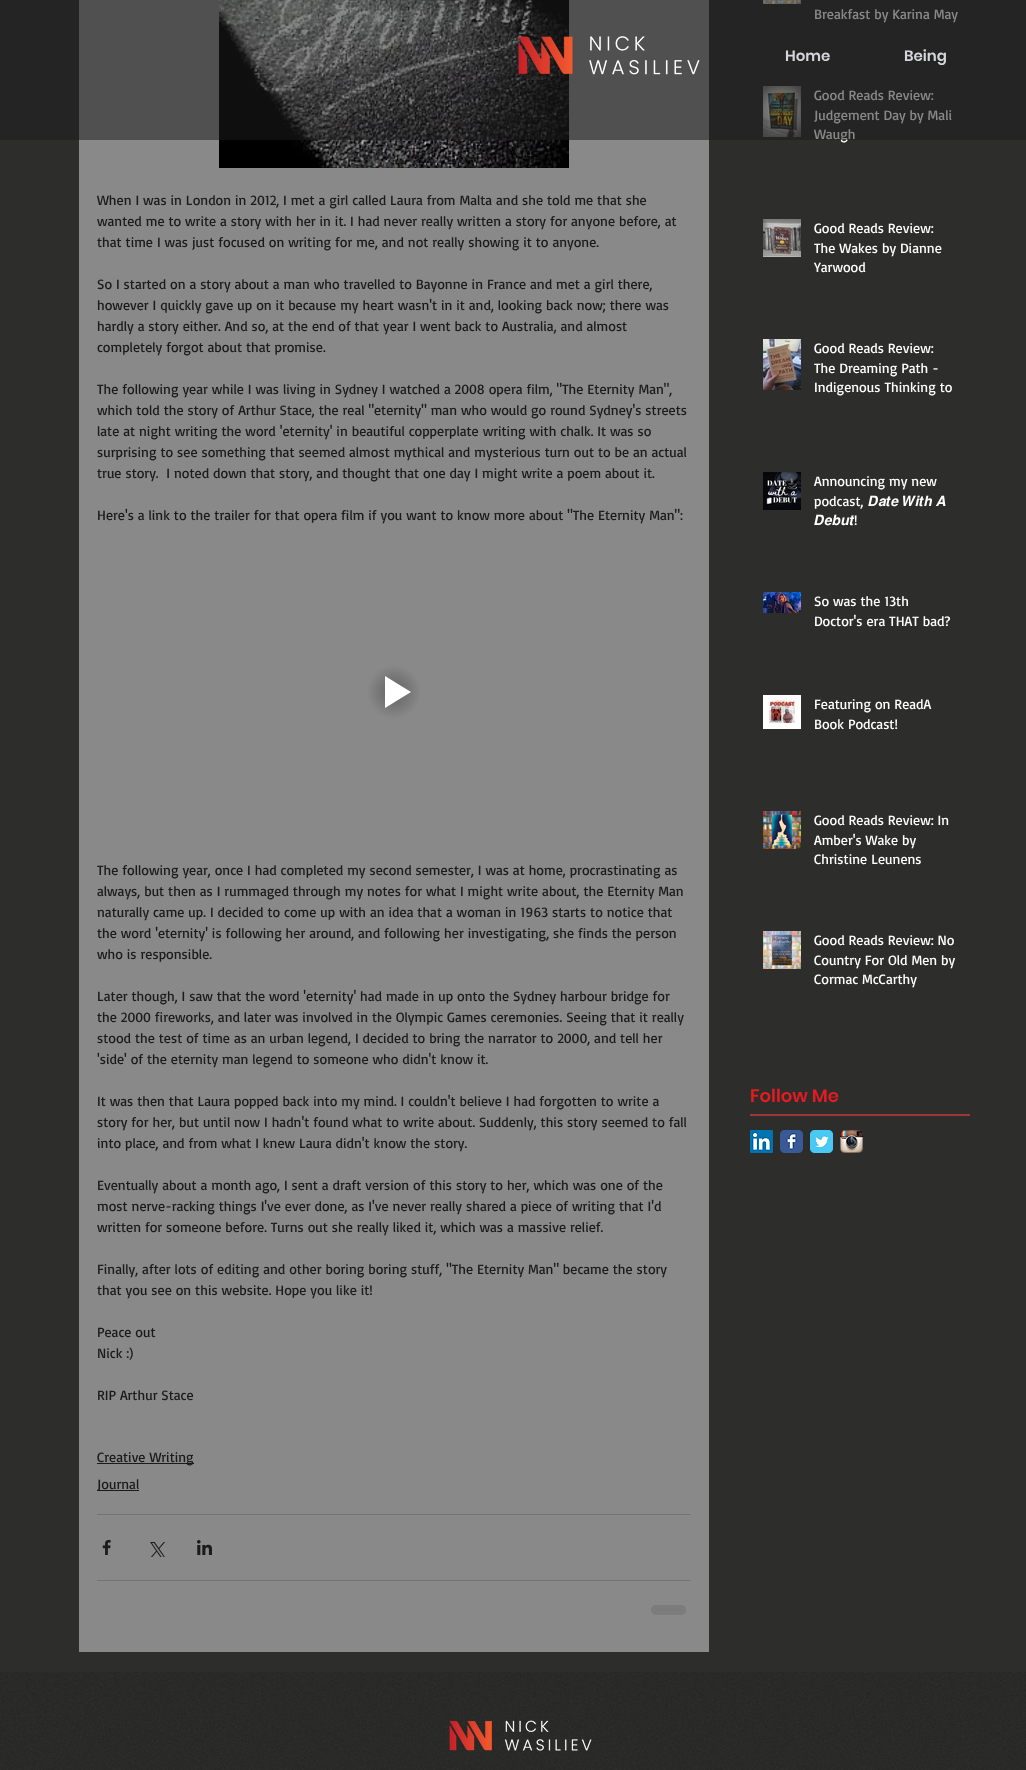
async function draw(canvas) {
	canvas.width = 1026;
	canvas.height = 1770;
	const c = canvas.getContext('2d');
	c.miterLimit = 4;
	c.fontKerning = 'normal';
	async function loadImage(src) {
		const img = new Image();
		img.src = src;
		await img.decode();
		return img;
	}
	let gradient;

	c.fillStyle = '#2d2d2c';
	c.fillRect(0, 0, 1026, 1770);
	c.fillStyle = '#898989';
	c.fillRect(79, 0, 630, 1652);
	c.drawImage(await loadImage('img1.png'), 219, 0, 350, 168);
	c.font = '14px Basic';
	c.fillStyle = '#1c1b1b';
	for (const [text, x, y] of [
		['When I was in London in 2012, I met a girl called Laura from Malta and she told me that she', 97, 205],
		['wanted me to write a story with her in it. I had never really written a story for anyone before, at', 97, 226],
		['that time I was just focused on writing for me, and not really showing it to anyone.', 97, 247],
		['So I started on a story about a man who travelled to Bayonne in France and met a girl there,', 97, 289],
		['however I quickly gave up on it because my heart wasn\'t in it and, looking back now; there was', 97, 310],
		['hardly a story either. And so, at the end of that year I went back to Australia, and almost', 97, 331],
		['completely forgot about that promise.', 97, 352],
		['The following year while I was living in Sydney I watched a 2008 opera film, "The Eternity Man",', 97, 394],
		['which told the story of Arthur Stace, the real "eternity" man who would go round Sydney\'s streets', 97, 415],
		['late at night writing the word \'eternity\' in beautiful copperplate writing with chalk. It was so', 97, 436],
		['surprising to see something that seemed almost mythical and mysterious turn out to be an actual', 97, 457],
		['true story.  I noted down that story, and thought that one day I might write a poem about it.', 97, 478],
		['Here\'s a link to the trailer for that opera film if you want to know more about "The Eternity Man":', 97, 520],
	]) {
		c.fillText(text, x, y);
	}
	gradient = c.createRadialGradient(394, 692, 0, 394, 692, 45);
	gradient.addColorStop(0, '#606060');
	gradient.addColorStop(0.6, '#898989');
	c.fillStyle = gradient;
	c.beginPath();
	c.arc(394, 692, 32, 0, 2 * Math.PI);
	c.fill();
	c.fillStyle = '#fff';
	c.beginPath();
	c.moveTo(385, 708);
	c.lineTo(385, 676);
	c.lineTo(411, 692);
	c.closePath();
	c.fill();
	c.fillStyle = '#1c1b1b';
	for (const [text, x, y] of [
		['The following year, once I had completed my second semester, I was at home, procrastinating as', 97, 875],
		['always, but then as I rummaged through my notes for what I might write about, the Eternity Man', 97, 896],
		['naturally came up. I decided to come up with an idea that a woman in 1963 starts to notice that', 97, 917],
		['the word \'eternity\' is following her around, and following her investigating, she finds the person', 97, 938],
		['who is responsible.', 97, 959],
		['Later though, I saw that the word \'eternity\' had made in up onto the Sydney harbour bridge for', 97, 1001],
		['the 2000 fireworks, and later was involved in the Olympic Games ceremonies. Seeing that it really', 97, 1022],
		['stood the test of time as an urban legend, I decided to bring the narrator to 2000, and tell her', 97, 1043],
		['\'side\' of the eternity man legend to someone who didn\'t know it.', 97, 1064],
		['It was then that Laura popped back into my mind. I couldn\'t believe I had forgotten to write a', 97, 1106],
		['story for her, but until now I hadn\'t found what to write about. Suddenly, this story seemed to fall', 97, 1127],
		['into place, and from what I knew Laura didn\'t know the story.', 97, 1148],
		['Eventually about a month ago, I sent a draft version of this story to her, which was one of the', 97, 1190],
		['most nerve-racking things I\'ve ever done, as I\'ve never really shared a piece of writing that I\'d', 97, 1211],
		['written for someone before. Turns out she really liked it, which was a massive relief.', 97, 1232],
		['Finally, after lots of editing and other boring boring stuff, "The Eternity Man" became the story', 97, 1274],
		['that you see on this website. Hope you like it!', 97, 1295],
		['Peace out', 97, 1337],
		['Nick :)', 97, 1358],
		['RIP Arthur Stace', 97, 1400],
	]) {
		c.fillText(text, x, y);
	}
	c.fillRect(97, 1463, 97, 1);
	c.fillText('Creative Writing', 97, 1462);
	c.fillRect(97, 1490, 42, 1);
	c.fillText('Journal', 97, 1489);
	c.fillStyle = '#737373';
	c.fillRect(97, 1514, 594, 1);
	c.drawImage(await loadImage('img2.png'), 102, 1540, 9, 15);
	c.drawImage(await loadImage('img3.png'), 150, 1542, 15, 15);
	c.drawImage(await loadImage('img4.png'), 197, 1540, 15, 15);
	c.fillRect(97, 1580, 594, 1);
	c.fillStyle = '#7c7c7c';
	c.beginPath();
	c.roundRect(651, 1605, 35, 10, 5);
	c.fill();
	c.font = '600 18px Poppins';
	c.fillStyle = '#e21c21';
	c.fillText('Follow Me', 750, 1102);
	c.drawImage(await loadImage('img5.png'), 763, 0, 38, 4);
	c.font = '14px Basic';
	c.fillStyle = '#fff';
	c.fillText('Breakfast by Karina May', 814, 19);
	c.drawImage(await loadImage('img6.png'), 763, 86, 38, 51);
	for (const [text, x, y] of [
		['Good Reads Review:', 814, 100],
		['Judgement Day by Mali', 814, 120],
		['Waugh', 814, 139],
	]) {
		c.fillText(text, x, y);
	}
	c.drawImage(await loadImage('img7.png'), 763, 219, 38, 38);
	for (const [text, x, y] of [
		['Good Reads Review:', 814, 233],
		['The Wakes by Dianne', 814, 253],
		['Yarwood', 814, 272],
	]) {
		c.fillText(text, x, y);
	}
	c.drawImage(await loadImage('img8.png'), 763, 339, 38, 51);
	for (const [text, x, y] of [
		['Good Reads Review:', 814, 353],
		['The Dreaming Path -', 814, 373],
		['Indigenous Thinking to', 814, 392],
	]) {
		c.fillText(text, x, y);
	}
	c.drawImage(await loadImage('img9.png'), 763, 472, 38, 38);
	c.fillText('Announcing my new', 814, 486);
	c.fillText('podcast,', 814, 506);
	c.font = '14px FreeSans';
	c.fillText('𝑫𝒂𝒕𝒆 𝑾𝒊𝒕𝒉 𝑨', 868, 506);
	c.fillText('𝑫𝒆𝒃𝒖𝒕', 814, 525);
	c.font = '14px Basic';
	c.fillText('!', 854, 525);
	c.drawImage(await loadImage('img10.png'), 763, 592, 38, 21);
	c.fillText('So was the 13th', 814, 606);
	c.fillText('Doctor\'s era THAT bad?', 814, 626);
	c.drawImage(await loadImage('img11.png'), 763, 695, 38, 34);
	c.fillText('Featuring on ReadA', 814, 709);
	c.fillText('Book Podcast!', 814, 729);
	c.drawImage(await loadImage('img12.png'), 763, 811, 38, 38);
	for (const [text, x, y] of [
		['Good Reads Review: In', 814, 825],
		['Amber\'s Wake by', 814, 845],
		['Christine Leunens', 814, 864],
	]) {
		c.fillText(text, x, y);
	}
	c.drawImage(await loadImage('img13.png'), 763, 931, 38, 38);
	for (const [text, x, y] of [
		['Good Reads Review: No', 814, 945],
		['Country For Old Men by', 814, 965],
		['Cormac McCarthy', 814, 984],
	]) {
		c.fillText(text, x, y);
	}
	c.fillStyle = '#a03535';
	c.fillRect(750, 1114, 220, 2);
	c.drawImage(await loadImage('img14.png'), 750, 1130, 23, 23);
	c.drawImage(await loadImage('img15.png'), 780, 1130, 23, 23);
	c.drawImage(await loadImage('img16.png'), 810, 1130, 23, 23);
	c.drawImage(await loadImage('img17.png'), 840, 1130, 23, 23);
	c.fillStyle = '#1c1c1c85';
	c.fillRect(0, 0, 1026, 140);
	c.drawImage(await loadImage('img18.png'), 518, 36, 182, 39);
	c.font = '600 15px Poppins';
	c.fillStyle = '#d3d5da';
	c.fillText('Home', 785, 61);
	c.fillText('Being', 904, 61);
	c.fillStyle = '#292928';
	c.fillRect(0, 1672, 1026, 98);
	c.drawImage(await loadImage('img19.png'), 0, 1672, 1026, 98);
	c.drawImage(await loadImage('img20.png'), 449, 1720, 143, 31);
}

draw(document.querySelector('canvas'));
